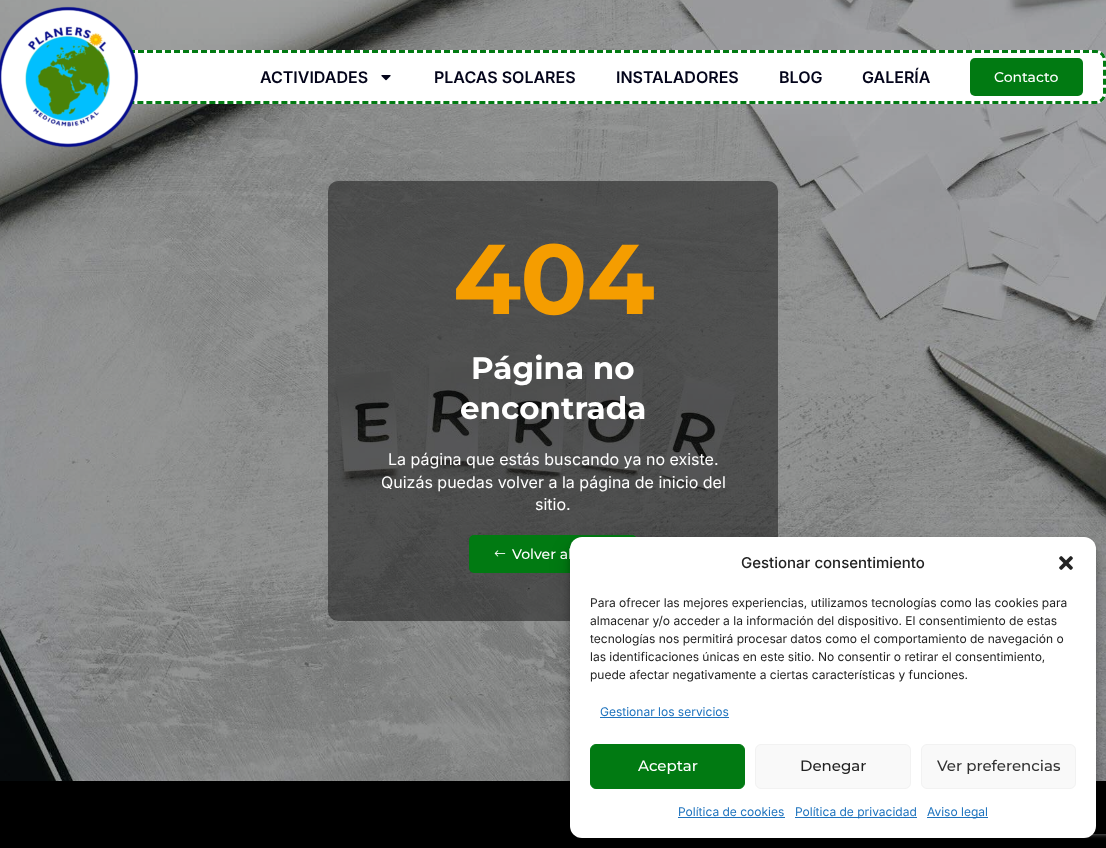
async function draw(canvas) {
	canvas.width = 1106;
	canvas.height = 848;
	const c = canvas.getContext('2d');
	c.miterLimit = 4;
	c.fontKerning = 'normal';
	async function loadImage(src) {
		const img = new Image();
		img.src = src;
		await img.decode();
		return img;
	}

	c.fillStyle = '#fff';
	c.fillRect(0, 0, 1106, 848);
	c.drawImage(await loadImage('img3.png'), 0, 0, 1106, 781);
	c.beginPath();
	c.roundRect(65, 50, 1041, 54, 10);
	c.fill();
	c.beginPath();
	c.moveTo(75, 51.5);
	c.lineTo(1096, 51.5);
	c.bezierCurveTo(1100.5, 51.5, 1104.5, 55.5, 1104.5, 60);
	c.lineTo(1104.5, 94);
	c.bezierCurveTo(1104.5, 98.5, 1100.5, 102.5, 1096, 102.5);
	c.lineTo(75, 102.5);
	c.bezierCurveTo(70.5, 102.5, 66.5, 98.5, 66.5, 94);
	c.lineTo(66.5, 60);
	c.bezierCurveTo(66.5, 55.5, 70.5, 51.5, 75, 51.5);
	c.closePath();
	c.strokeStyle = '#017a12';
	c.lineWidth = 3;
	c.setLineDash([6, 3]);
	c.stroke();
	c.drawImage(await loadImage('img1.png'), 0, 6, 139, 142);
	c.font = '600 16px Inter';
	c.fillStyle = '#03041a';
	c.fillText('ACTIVIDADES', 260, 83);
	c.drawImage(await loadImage('img2.png'), 381, 75, 10, 6);
	for (const [text, x, y] of [
		['PLACAS SOLARES', 434, 83],
		['INSTALADORES', 616, 83],
		['BLOG', 779, 83],
		['GALERÍA', 862, 83],
	]) {
		c.fillText(text, x, y);
	}
	c.fillStyle = '#017a12';
	c.beginPath();
	c.roundRect(970, 58, 113, 38, 5);
	c.fill();
	c.font = '500 14px Montserrat';
	c.fillStyle = '#fff';
	c.fillText('Contacto', 994, 82);
	c.fillStyle = '#0f0f1080';
	c.beginPath();
	c.roundRect(328, 181, 450, 440, 10);
	c.fill();
	c.letterSpacing = '-1px';
	c.font = 'bold 99px Montserrat';
	c.fillStyle = '#f59d00';
	c.fillText('404', 453, 314);
	c.letterSpacing = '0px';
	c.font = 'bold 31px Montserrat';
	c.fillStyle = '#fff';
	c.fillText('Página no', 471, 379);
	c.fillText('encontrada', 460, 419);
	c.font = '16px Inter';
	for (const [text, x, y] of [
		['La página que estás buscando ya no existe.', 388, 465],
		['Quizás puedas volver a la página de inicio del', 381, 488],
		['sitio.', 535, 510],
	]) {
		c.fillText(text, x, y);
	}
	c.fillStyle = '#017a12';
	c.beginPath();
	c.roundRect(469, 535, 168, 38, 5);
	c.fill();
	c.drawImage(await loadImage('img4.png'), 494, 550, 12, 7);
	c.font = '500 14px Montserrat';
	c.fillStyle = '#fff';
	c.fillText('Volver al', 512, 559);
	c.fillStyle = '#000';
	c.fillRect(0, 781, 1106, 67);
	c.fillStyle = '#0000003b';
	c.filter = 'blur(3px)';
	c.beginPath();
	c.roundRect(570, 543, 526, 301, 12);
	c.fill();
	c.filter = 'none';
	c.fillStyle = '#00000030';
	c.filter = 'blur(10px)';
	c.beginPath();
	c.roundRect(570, 547, 526, 301, 12);
	c.fill();
	c.filter = 'none';
	c.save();
	c.beginPath();
	c.moveTo(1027, 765);
	c.lineTo(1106, 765);
	c.lineTo(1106, 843);
	c.lineTo(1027, 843);
	c.closePath();
	c.moveTo(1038, 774);
	c.lineTo(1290, 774);
	c.bezierCurveTo(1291, 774, 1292, 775, 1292, 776);
	c.lineTo(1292, 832);
	c.bezierCurveTo(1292, 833, 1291, 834, 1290, 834);
	c.lineTo(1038, 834);
	c.bezierCurveTo(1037, 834, 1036, 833, 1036, 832);
	c.lineTo(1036, 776);
	c.bezierCurveTo(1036, 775, 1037, 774, 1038, 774);
	c.closePath();
	c.clip('evenodd');
	c.fillStyle = '#808080';
	c.filter = 'blur(2.5px)';
	c.beginPath();
	c.roundRect(1036, 774, 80, 60, 2);
	c.fill();
	c.filter = 'none';
	c.restore();
	c.fillStyle = '#fff';
	c.beginPath();
	c.roundRect(570, 537, 526, 301, 12);
	c.fill();
	c.font = '500 15px Inter';
	c.fillStyle = '#222';
	c.fillText('Gestionar consentimiento', 741, 568);
	c.drawImage(await loadImage('img5.png'), 1059, 556, 14, 14);
	c.font = '12px Inter';
	for (const [text, x, y] of [
		['Para ofrecer las mejores experiencias, utilizamos tecnologías como las cookies para', 590, 607],
		['almacenar y/o acceder a la información del dispositivo. El consentimiento de estas', 590, 625],
		['tecnologías nos permitirá procesar datos como el comportamiento de navegación o', 590, 643],
		['las identificaciones únicas en este sitio. No consentir o retirar el consentimiento,', 590, 661],
		['puede afectar negativamente a ciertas características y funciones.', 590, 679],
	]) {
		c.fillText(text, x, y);
	}
	c.fillStyle = '#1e73be';
	c.fillText('Gestionar los servicios', 600, 716);
	c.fillRect(600, 717, 129, 1);
	c.fillStyle = '#017a12';
	c.beginPath();
	c.roundRect(590.5, 744.5, 154, 44, 5.5);
	c.fill();
	c.lineWidth = 1;
	c.setLineDash([]);
	c.stroke();
	c.font = '500 15px Montserrat';
	c.fillStyle = '#fff';
	c.fillText('Aceptar', 638, 771);
	c.fillStyle = '#f9f9f9';
	c.beginPath();
	c.roundRect(755.5, 744.5, 155, 44, 5.5);
	c.fill();
	c.strokeStyle = '#f2f2f2';
	c.stroke();
	c.fillStyle = '#222';
	c.fillText('Denegar', 800, 771);
	c.fillStyle = '#f9f9f9';
	c.beginPath();
	c.roundRect(921.5, 744.5, 154, 44, 5.5);
	c.fill();
	c.stroke();
	c.fillStyle = '#333';
	c.fillText('Ver preferencias', 937, 771);
	c.font = '12px Inter';
	c.fillStyle = '#1e73be';
	c.fillText('Política de cookies', 678, 816);
	c.fillRect(678, 817, 107, 1);
	c.fillRect(795, 817, 122, 1);
	c.fillText('Política de privacidad', 795, 816);
	c.fillRect(927, 817, 61, 1);
	c.fillText('Aviso legal', 927, 816);
}

draw(document.querySelector('canvas'));
